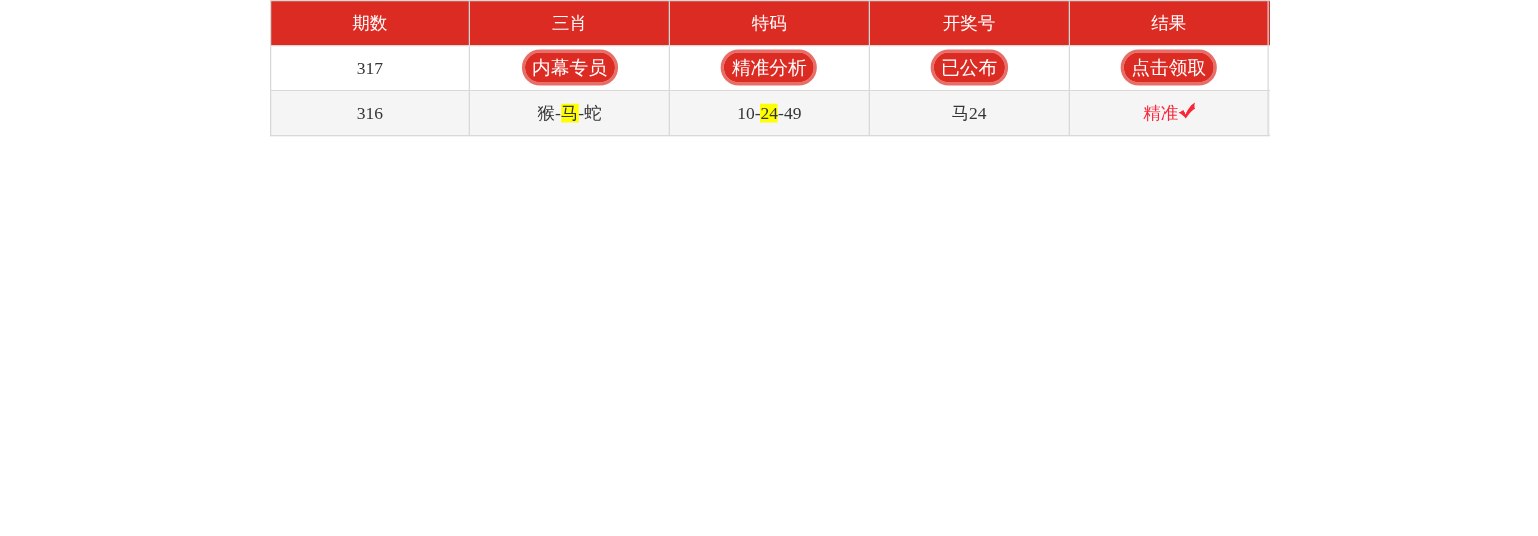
async function draw(canvas) {
	canvas.width = 1538;
	canvas.height = 536;
	const c = canvas.getContext('2d');
	c.miterLimit = 4;
	c.fontKerning = 'normal';
	async function loadImage(src) {
		const img = new Image();
		img.src = src;
		await img.decode();
		return img;
	}

	c.fillStyle = '#fff';
	c.fillRect(0, 0, 1538, 536);
	c.drawImage(await loadImage('img1.png'), 270, 0, 1000, 137);
}

draw(document.querySelector('canvas'));
